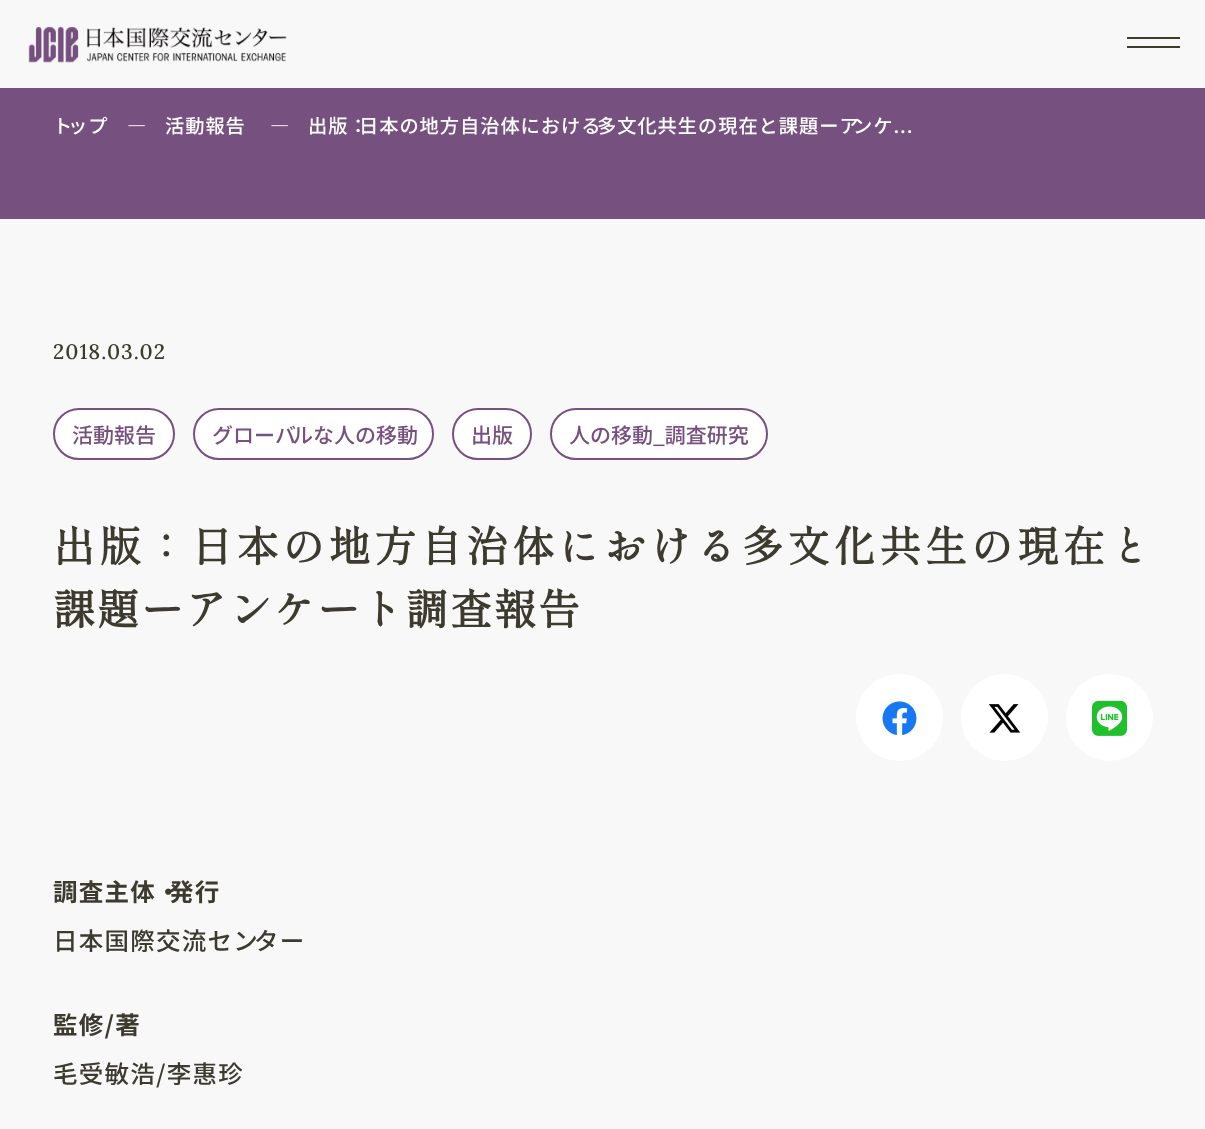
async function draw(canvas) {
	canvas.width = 1205;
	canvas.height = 1129;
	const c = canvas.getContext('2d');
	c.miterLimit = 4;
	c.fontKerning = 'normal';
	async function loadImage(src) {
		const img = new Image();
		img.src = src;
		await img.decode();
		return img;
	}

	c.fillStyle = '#f8f8f8';
	c.fillRect(0, 0, 1205, 1129);
	c.drawImage(await loadImage('img1.png'), 28, 26, 259, 37);
	for (const [x, y, w, h, color] of [
		[1127, 37, 53, 2, '#3d3b30'],
		[1127, 46, 53, 2, '#3d3b30'],
		[0, 88, 1205, 131, '#76507f'],
	]) {
		c.fillStyle = color;
		c.fillRect(x, y, w, h);
	}
	c.letterSpacing = '0.95px';
	c.font = '500 19.25px Noto Sans JP';
	c.fillStyle = '#fff';
	for (const [text, x, y] of [
		['ト', 53, 133],
		['ップ', 68, 133],
		['―', 127, 133],
		['活動報告', 165, 133],
		['―', 270, 133],
		['出版：', 308, 133],
		['日本の地方自治体における', 359, 133],
		['多文化共生の現在と課題ーア', 597, 133],
		['ンケ...', 853, 133],
	]) {
		c.fillText(text, x, y);
	}
	c.letterSpacing = '1px';
	c.font = '500 21px Lora';
	c.fillStyle = '#3d3b30';
	c.fillText('2018.03.02', 53, 359);
	c.fillStyle = '#fff';
	c.beginPath();
	c.roundRect(54, 409, 120, 50, 25);
	c.fill();
	c.strokeStyle = '#76507f';
	c.lineWidth = 2;
	c.stroke();
	c.letterSpacing = '0px';
	c.font = '500 21px Noto Sans JP';
	c.fillStyle = '#76507f';
	c.fillText('活動報告', 72, 443);
	c.fillStyle = '#fff';
	c.beginPath();
	c.roundRect(194, 409, 239, 50, 25);
	c.fill();
	c.stroke();
	c.fillStyle = '#76507f';
	c.fillText('グローバ', 212, 443);
	c.fillText('ルな人の移動', 292, 443);
	c.fillStyle = '#fff';
	c.beginPath();
	c.roundRect(453, 409, 78, 50, 25);
	c.fill();
	c.stroke();
	c.fillStyle = '#76507f';
	c.fillText('出版', 471, 443);
	c.fillStyle = '#fff';
	c.beginPath();
	c.roundRect(551, 409, 216, 50, 25);
	c.fill();
	c.stroke();
	c.fillStyle = '#76507f';
	c.fillText('人の移動_調査研究', 569, 443);
	c.letterSpacing = '3.9px';
	c.font = 'bold 42px Shippori Mincho';
	c.fillStyle = '#3d3b30';
	c.fillText('出版：日本の地方自治体における多文化共生の現在と', 53, 562);
	c.letterSpacing = '2.1px';
	c.fillText('課題ーアンケート調査報告', 53, 625);
	c.fillStyle = '#fff';
	c.beginPath();
	c.arc(899.5, 717.5, 43.5, 0, 2 * Math.PI);
	c.fill();
	c.drawImage(await loadImage('img2.png'), 882, 701, 35, 35);
	c.beginPath();
	c.arc(1004.5, 717.5, 43.5, 0, 2 * Math.PI);
	c.fill();
	c.drawImage(await loadImage('img3.png'), 989, 704, 32, 29);
	c.beginPath();
	c.arc(1109.5, 717.5, 43.5, 0, 2 * Math.PI);
	c.fill();
	c.drawImage(await loadImage('img4.png'), 1092, 700, 35, 36);
	c.letterSpacing = '1.25px';
	c.font = 'bold 24.5px Noto Sans JP';
	c.fillStyle = '#3d3b30';
	c.fillText('調査主体・', 53, 901);
	c.fillText('発行', 169, 901);
	c.font = '500 24.5px Noto Sans JP';
	c.fillText('日本国際交流セン', 53, 950);
	c.fillText('ター', 254, 950);
	c.font = 'bold 24.5px Noto Sans JP';
	c.fillText('監修/著', 53, 1034);
	c.font = '500 24.5px Noto Sans JP';
	c.fillText('毛受敏浩/李惠珍', 53, 1083);
}

draw(document.querySelector('canvas'));
